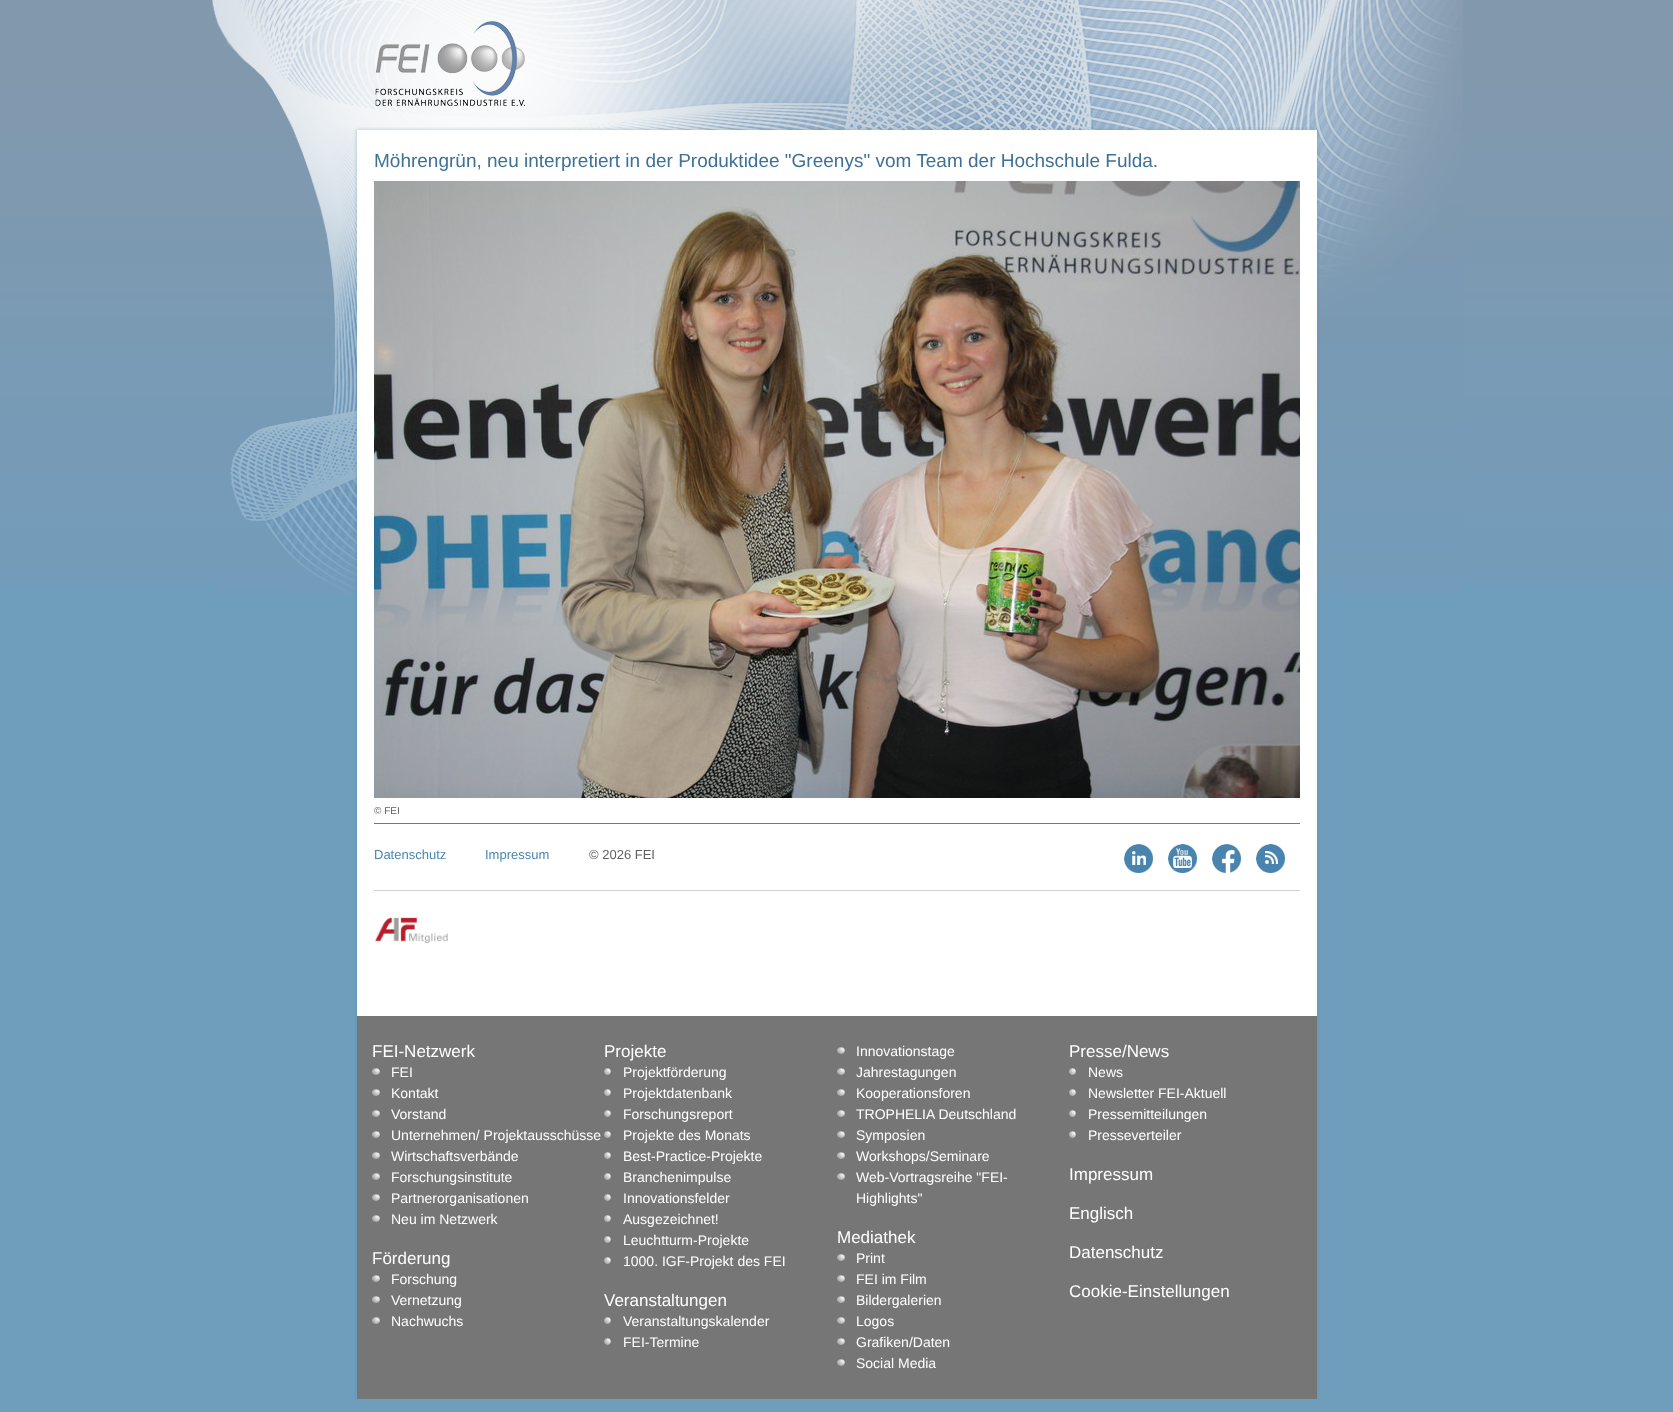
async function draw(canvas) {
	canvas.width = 1673;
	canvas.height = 1412;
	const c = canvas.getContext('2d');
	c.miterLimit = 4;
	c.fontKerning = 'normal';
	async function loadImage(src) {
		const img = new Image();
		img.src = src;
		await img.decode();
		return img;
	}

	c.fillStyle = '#6f9ebd';
	c.fillRect(0, 0, 1673, 1412);
	c.drawImage(await loadImage('img1.png'), 0, 0, 1673, 584);
	c.drawImage(await loadImage('img2.png'), 212, 0, 1251, 594);
	c.drawImage(await loadImage('img3.png'), 375, 21, 150, 85);
	c.drawImage(await loadImage('img4.png'), 355, 127, 964, 3);
	c.drawImage(await loadImage('img5.png'), 354, 130, 966, 1269);
	c.font = '19px Liberation Sans';
	c.fillStyle = '#3d7195';
	c.fillText('Möhrengrün, neu interpretiert in der Produktidee "Greenys" vom Team der Hochschule Fulda.', 374, 167);
	c.drawImage(await loadImage('img6.png'), 374, 181, 926, 617);
	c.font = '10px Liberation Sans';
	c.fillStyle = '#5f5f5f';
	c.fillText('© FEI', 374, 814);
	c.fillStyle = '#4785ae';
	c.fillRect(374, 823, 926, 1);
	c.font = '13px Liberation Sans';
	c.fillStyle = '#4886af';
	c.fillText('Datenschutz', 374, 859);
	c.fillText('Impressum', 485, 859);
	c.fillStyle = '#5f5f5f';
	c.fillText('© 2026 FEI', 589, 859);
	c.drawImage(await loadImage('img7.png'), 1124, 844, 29, 29);
	c.drawImage(await loadImage('img8.png'), 1168, 844, 29, 29);
	c.drawImage(await loadImage('img9.png'), 1212, 844, 29, 29);
	c.drawImage(await loadImage('img10.png'), 1256, 844, 29, 29);
	c.fillStyle = '#cecfcf';
	c.fillRect(374, 890, 926, 1);
	c.drawImage(await loadImage('img11.png'), 375, 917, 73, 27);
	c.fillStyle = '#767676';
	c.fillRect(357, 1016, 960, 383);
	c.font = '17px Liberation Sans';
	c.fillStyle = '#fff';
	c.fillText('FEI-Netzwerk', 372, 1057);
	c.drawImage(await loadImage('img12.png'), 372, 1068, 8, 7);
	c.font = '14px Liberation Sans';
	c.fillText('FEI', 391, 1077);
	c.drawImage(await loadImage('img12.png'), 372, 1089, 8, 7);
	c.fillText('Kontakt', 391, 1098);
	c.drawImage(await loadImage('img12.png'), 372, 1110, 8, 7);
	c.fillText('Vorstand', 391, 1119);
	c.drawImage(await loadImage('img12.png'), 372, 1131, 8, 7);
	c.fillText('Unternehmen/ Projektausschüsse', 391, 1140);
	c.drawImage(await loadImage('img12.png'), 372, 1152, 8, 7);
	c.fillText('Wirtschaftsverbände', 391, 1161);
	c.drawImage(await loadImage('img12.png'), 372, 1173, 8, 7);
	c.fillText('Forschungsinstitute', 391, 1182);
	c.drawImage(await loadImage('img12.png'), 372, 1194, 8, 7);
	c.fillText('Partnerorganisationen', 391, 1203);
	c.drawImage(await loadImage('img12.png'), 372, 1215, 8, 7);
	c.fillText('Neu im Netzwerk', 391, 1224);
	c.font = '17px Liberation Sans';
	c.fillText('Förderung', 372, 1264);
	c.drawImage(await loadImage('img12.png'), 372, 1275, 8, 7);
	c.font = '14px Liberation Sans';
	c.fillText('Forschung', 391, 1284);
	c.drawImage(await loadImage('img12.png'), 372, 1296, 8, 7);
	c.fillText('Vernetzung', 391, 1305);
	c.drawImage(await loadImage('img12.png'), 372, 1317, 8, 7);
	c.fillText('Nachwuchs', 391, 1326);
	c.font = '17px Liberation Sans';
	c.fillText('Projekte', 604, 1057);
	c.drawImage(await loadImage('img13.png'), 604, 1068, 7, 7);
	c.font = '14px Liberation Sans';
	c.fillText('Projektförderung', 623, 1077);
	c.drawImage(await loadImage('img13.png'), 604, 1089, 7, 7);
	c.fillText('Projektdatenbank', 623, 1098);
	c.drawImage(await loadImage('img13.png'), 604, 1110, 7, 7);
	c.fillText('Forschungsreport', 623, 1119);
	c.drawImage(await loadImage('img13.png'), 604, 1131, 7, 7);
	c.fillText('Projekte des Monats', 623, 1140);
	c.drawImage(await loadImage('img13.png'), 604, 1152, 7, 7);
	c.fillText('Best-Practice-Projekte', 623, 1161);
	c.drawImage(await loadImage('img13.png'), 604, 1173, 7, 7);
	c.fillText('Branchenimpulse', 623, 1182);
	c.drawImage(await loadImage('img13.png'), 604, 1194, 7, 7);
	c.fillText('Innovationsfelder', 623, 1203);
	c.drawImage(await loadImage('img13.png'), 604, 1215, 7, 7);
	c.fillText('Ausgezeichnet!', 623, 1224);
	c.drawImage(await loadImage('img13.png'), 604, 1236, 7, 7);
	c.fillText('Leuchtturm-Projekte', 623, 1245);
	c.drawImage(await loadImage('img13.png'), 604, 1257, 7, 7);
	c.fillText('1000. IGF-Projekt des FEI', 623, 1266);
	c.font = '17px Liberation Sans';
	c.fillText('Veranstaltungen', 604, 1306);
	c.drawImage(await loadImage('img13.png'), 604, 1317, 7, 7);
	c.font = '14px Liberation Sans';
	c.fillText('Veranstaltungskalender', 623, 1326);
	c.drawImage(await loadImage('img13.png'), 604, 1338, 7, 7);
	c.fillText('FEI-Termine', 623, 1347);
	c.drawImage(await loadImage('img12.png'), 837, 1047, 8, 7);
	c.fillText('Innovationstage', 856, 1056);
	c.drawImage(await loadImage('img12.png'), 837, 1068, 8, 7);
	c.fillText('Jahrestagungen', 856, 1077);
	c.drawImage(await loadImage('img12.png'), 837, 1089, 8, 7);
	c.fillText('Kooperationsforen', 856, 1098);
	c.drawImage(await loadImage('img12.png'), 837, 1110, 8, 7);
	c.fillText('TROPHELIA Deutschland', 856, 1119);
	c.drawImage(await loadImage('img12.png'), 837, 1131, 8, 7);
	c.fillText('Symposien', 856, 1140);
	c.drawImage(await loadImage('img12.png'), 837, 1152, 8, 7);
	c.fillText('Workshops/Seminare', 856, 1161);
	c.drawImage(await loadImage('img12.png'), 837, 1173, 8, 7);
	c.fillText('Web-Vortragsreihe "FEI-', 856, 1182);
	c.fillText('Highlights"', 856, 1203);
	c.font = '17px Liberation Sans';
	c.fillText('Mediathek', 837, 1243);
	c.drawImage(await loadImage('img12.png'), 837, 1254, 8, 7);
	c.font = '14px Liberation Sans';
	c.fillText('Print', 856, 1263);
	c.drawImage(await loadImage('img12.png'), 837, 1275, 8, 7);
	c.fillText('FEI im Film', 856, 1284);
	c.drawImage(await loadImage('img12.png'), 837, 1296, 8, 7);
	c.fillText('Bildergalerien', 856, 1305);
	c.drawImage(await loadImage('img12.png'), 837, 1317, 8, 7);
	c.fillText('Logos', 856, 1326);
	c.drawImage(await loadImage('img12.png'), 837, 1338, 8, 7);
	c.fillText('Grafiken/Daten', 856, 1347);
	c.drawImage(await loadImage('img12.png'), 837, 1359, 8, 7);
	c.fillText('Social Media', 856, 1368);
	c.font = '17px Liberation Sans';
	c.fillText('Presse/News', 1069, 1057);
	c.drawImage(await loadImage('img13.png'), 1069, 1068, 7, 7);
	c.font = '14px Liberation Sans';
	c.fillText('News', 1088, 1077);
	c.drawImage(await loadImage('img13.png'), 1069, 1089, 7, 7);
	c.fillText('Newsletter FEI-Aktuell', 1088, 1098);
	c.drawImage(await loadImage('img13.png'), 1069, 1110, 7, 7);
	c.fillText('Pressemitteilungen', 1088, 1119);
	c.drawImage(await loadImage('img13.png'), 1069, 1131, 7, 7);
	c.fillText('Presseverteiler', 1088, 1140);
	c.font = '17px Liberation Sans';
	for (const [text, x, y] of [
		['Impressum', 1069, 1180],
		['Englisch', 1069, 1219],
		['Datenschutz', 1069, 1258],
		['Cookie-Einstellungen', 1069, 1297],
	]) {
		c.fillText(text, x, y);
	}
}

draw(document.querySelector('canvas'));
